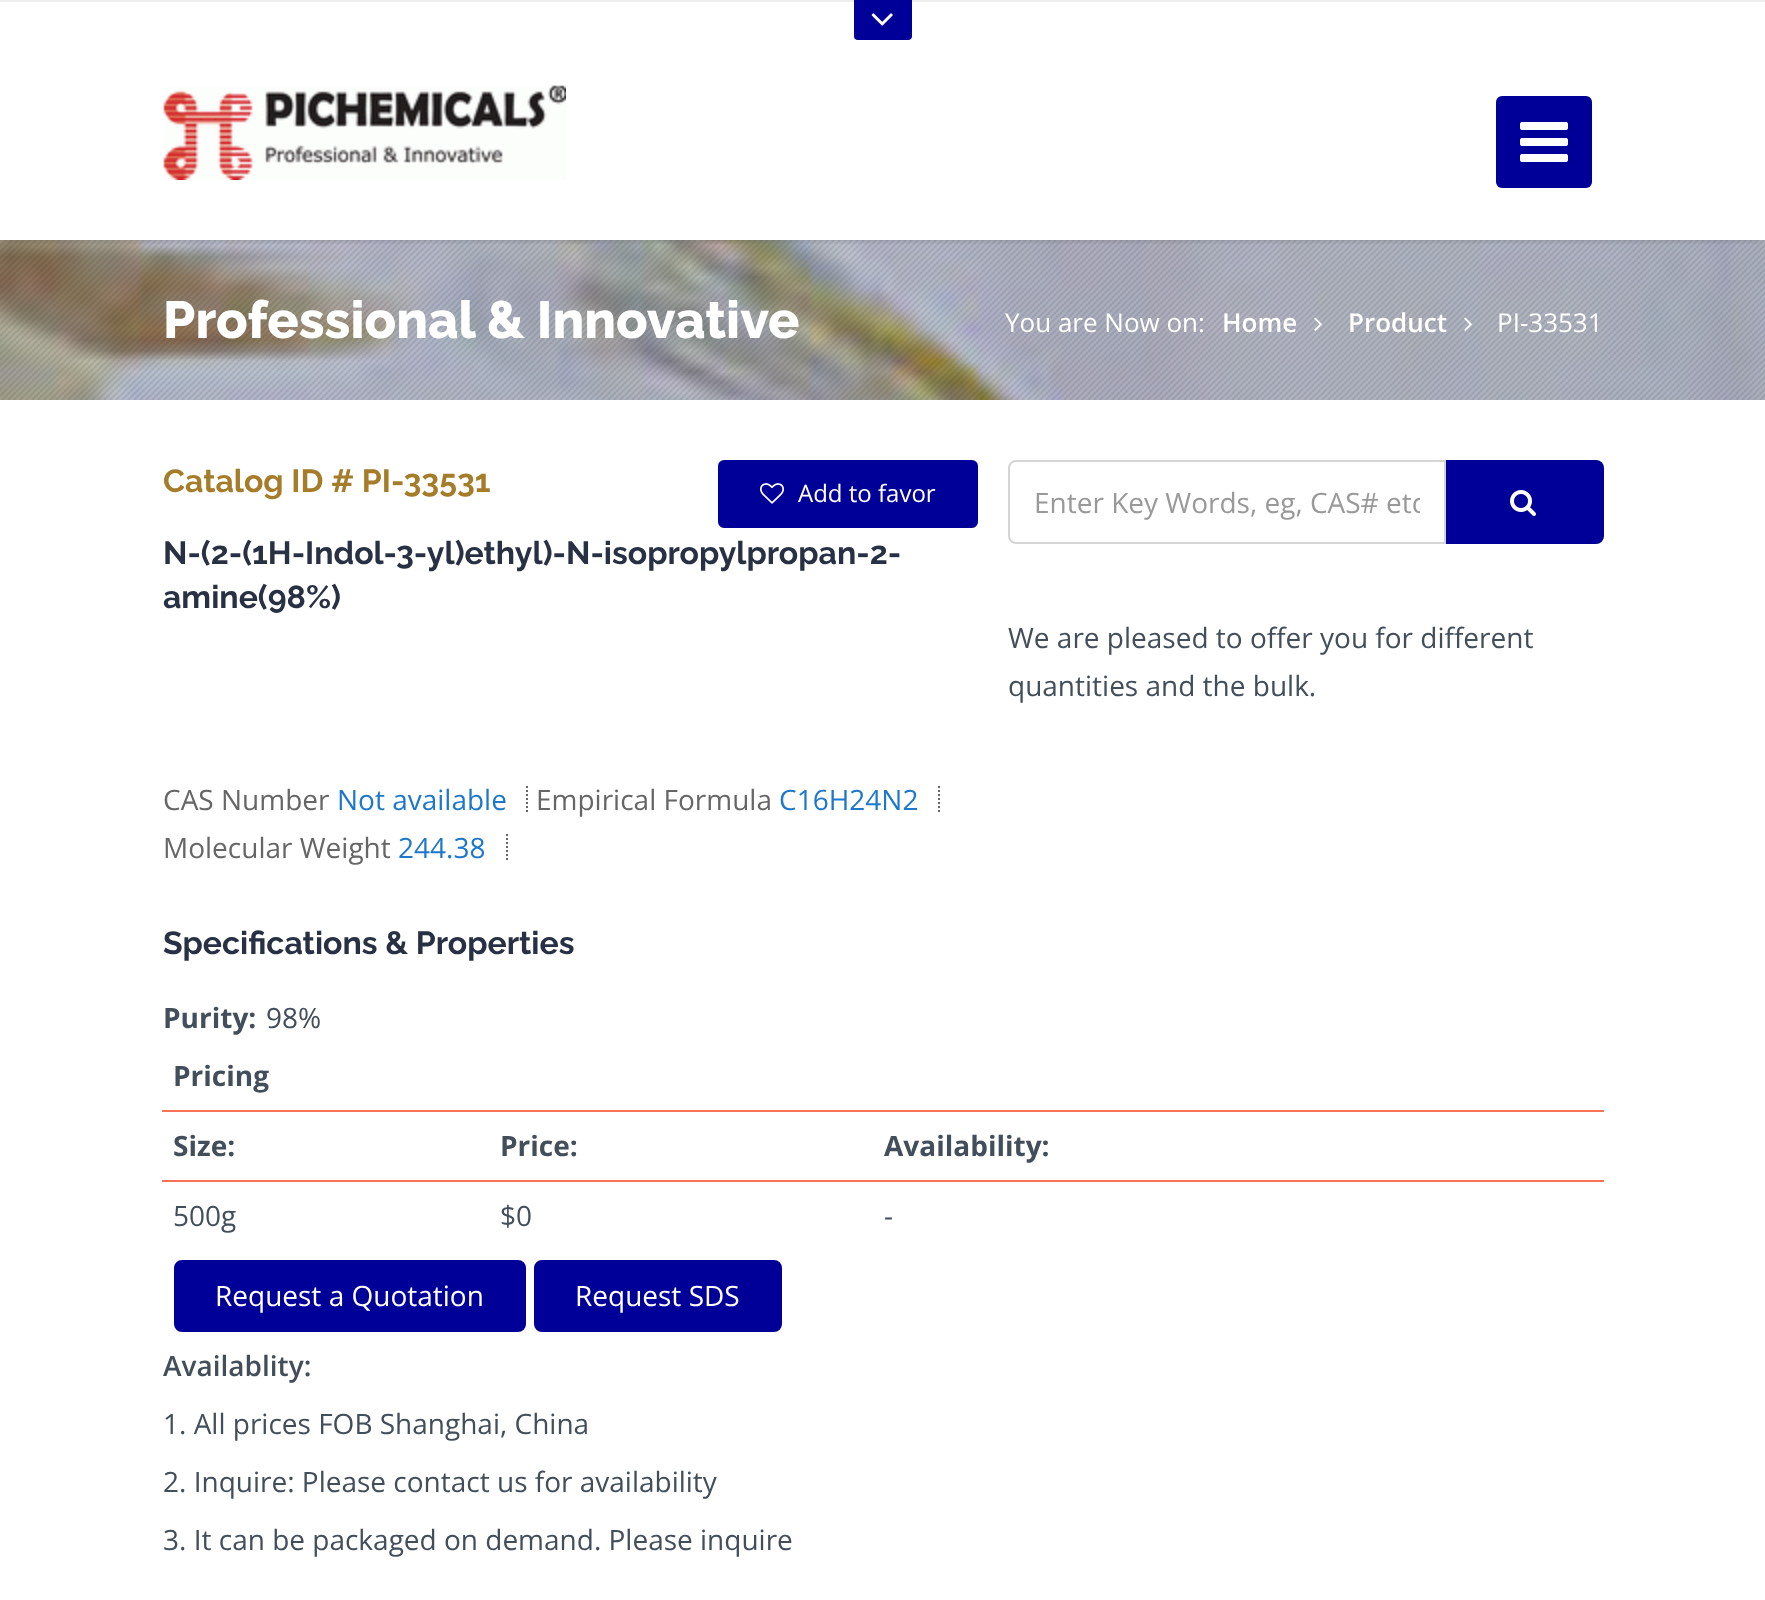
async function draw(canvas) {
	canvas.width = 1765;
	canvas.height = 1600;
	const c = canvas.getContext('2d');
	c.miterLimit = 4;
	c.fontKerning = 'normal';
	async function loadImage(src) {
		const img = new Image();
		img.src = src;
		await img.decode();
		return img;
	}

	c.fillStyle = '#fff';
	c.fillRect(0, 0, 1765, 1600);
	c.fillStyle = '#eee';
	c.fillRect(0, 0, 1765, 2);
	c.drawImage(await loadImage('img4.png'), 0, 240, 1765, 160);
	c.drawImage(await loadImage('img5.png'), 0, 240, 1765, 160);
	c.save();
	c.beginPath();
	c.rect(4, 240, 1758, 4);
	c.clip();
	c.fillStyle = '#00000033';
	c.filter = 'blur(3px)';
	c.beginPath();
	c.rect(6, 14, 1754, 226);
	c.fill();
	c.filter = 'none';
	c.restore();
	c.fillStyle = '#009';
	c.beginPath();
	c.roundRect(854, 0, 58, 40, [0, 0, 4, 4]);
	c.fill();
	c.drawImage(await loadImage('img1.png'), 871, 13, 22, 13);
	c.drawImage(await loadImage('img2.png'), 163, 85, 403, 95);
	c.beginPath();
	c.roundRect(1496, 96, 96, 92, 6);
	c.fill();
	c.drawImage(await loadImage('img3.png'), 1520, 122, 48, 40);
	c.font = '800 52px Raleway';
	c.fillStyle = '#fff';
	c.fillText('Professional & Innovative', 163, 338);
	c.font = '26px Open Sans';
	c.fillText('You are Now on:', 1005, 332);
	c.font = '600 26px Open Sans';
	c.fillText('Home', 1222, 332);
	c.drawImage(await loadImage('img6.png'), 1314, 317, 8, 14);
	c.fillText('Product', 1348, 332);
	c.drawImage(await loadImage('img7.png'), 1464, 317, 8, 14);
	c.font = '26px Open Sans';
	c.fillText('PI-33531', 1497, 332);
	c.font = 'bold 32px Raleway';
	c.fillStyle = '#a57c29';
	c.fillText('Catalog ID # PI-33531', 163, 492);
	c.fillStyle = '#009';
	c.beginPath();
	c.roundRect(719, 461, 258, 66, 5);
	c.fill();
	c.strokeStyle = '#009';
	c.lineWidth = 2;
	c.stroke();
	c.drawImage(await loadImage('img8.png'), 760, 483, 24, 21);
	c.font = '24px Open Sans';
	c.fillStyle = '#fff';
	c.fillText('Add to favor', 798, 502);
	c.font = 'bold 32px Raleway';
	c.fillStyle = '#283043';
	c.fillText('N-(2-(1H-Indol-3-yl)ethyl)-N-isopropylpropan-2-', 163, 564);
	c.fillText('amine(98%)', 163, 608);
	c.beginPath();
	c.moveTo(527, 786);
	c.lineTo(527, 814);
	c.strokeStyle = '#666';
	c.setLineDash([2, 2]);
	c.stroke();
	c.font = '28px Open Sans';
	c.fillStyle = '#666';
	c.fillText('CAS Number', 163, 810);
	c.fillStyle = '#1d78cb';
	c.fillText('Not available', 337, 810);
	c.beginPath();
	c.moveTo(939, 786);
	c.lineTo(939, 814);
	c.stroke();
	c.fillStyle = '#666';
	c.fillText('Empirical Formula', 536, 810);
	c.fillStyle = '#1d78cb';
	c.fillText('C16H24N2', 779, 810);
	c.beginPath();
	c.moveTo(507, 834);
	c.lineTo(507, 862);
	c.stroke();
	c.fillStyle = '#666';
	c.fillText('Molecular Weight', 163, 858);
	c.fillStyle = '#1d78cb';
	c.fillText('244.38', 398, 858);
	c.font = 'bold 32px Raleway';
	c.fillStyle = '#283043';
	c.fillText('Specifications & Properties', 163, 954);
	c.font = 'bold 28px Open Sans';
	c.fillStyle = '#424e5a';
	c.fillText('Purity:', 163, 1028);
	c.font = '28px Open Sans';
	c.fillText('98%', 266, 1028);
	c.fillStyle = '#009';
	c.beginPath();
	c.roundRect(1444, 460, 160, 84, [0, 8, 8, 0]);
	c.fill();
	c.fillStyle = '#fff';
	c.beginPath();
	c.roundRect(1009, 461, 436, 82, [7, 0, 0, 7]);
	c.fill();
	c.strokeStyle = '#d5d5d5';
	c.setLineDash([]);
	c.stroke();
	c.save();
	c.beginPath();
	c.rect(1034, 484, 386, 38);
	c.clip();
	c.fillStyle = '#999';
	c.fillText('Enter Key Words, eg, CAS# etc', 1034, 513);
	c.restore();
	c.drawImage(await loadImage('img9.png'), 1510, 490, 26, 26);
	c.fillStyle = '#424e5a';
	c.fillText('We are pleased to offer you for different', 1008, 648);
	c.fillText('quantities and the bulk.', 1008, 696);
	c.fillStyle = '#fb7354';
	c.fillRect(162, 1110, 1442, 2);
	c.font = 'bold 28px Open Sans';
	c.fillStyle = '#424e5a';
	c.fillText('Pricing', 173, 1086);
	c.fillStyle = '#fb7354';
	c.fillRect(162, 1180, 1442, 2);
	c.fillStyle = '#424e5a';
	for (const [text, x, y] of [
		['Size:', 173, 1156],
		['Price:', 500, 1156],
		['Availability:', 884, 1156],
	]) {
		c.fillText(text, x, y);
	}
	c.font = '28px Open Sans';
	for (const [text, x, y] of [
		['500g', 173, 1226],
		['$0', 500, 1226],
		['-', 884, 1226],
	]) {
		c.fillText(text, x, y);
	}
	c.fillStyle = '#009';
	c.beginPath();
	c.roundRect(175, 1261, 350, 70, 7);
	c.fill();
	c.strokeStyle = '#009';
	c.stroke();
	c.fillStyle = '#fff';
	c.fillText('Request a Quotation', 215, 1306);
	c.fillStyle = '#009';
	c.beginPath();
	c.roundRect(535, 1261, 246, 70, 7);
	c.fill();
	c.stroke();
	c.fillStyle = '#fff';
	c.fillText('Request SDS', 575, 1306);
	c.font = '600 28px Open Sans';
	c.fillStyle = '#424e5a';
	c.fillText('Availablity:', 163, 1376);
	c.font = '28px Open Sans';
	for (const [text, x, y] of [
		['1. All prices FOB Shanghai, China', 163, 1434],
		['2. Inquire: Please contact us for availability', 163, 1492],
		['3. It can be packaged on demand. Please inquire', 163, 1550],
	]) {
		c.fillText(text, x, y);
	}
}

draw(document.querySelector('canvas'));
